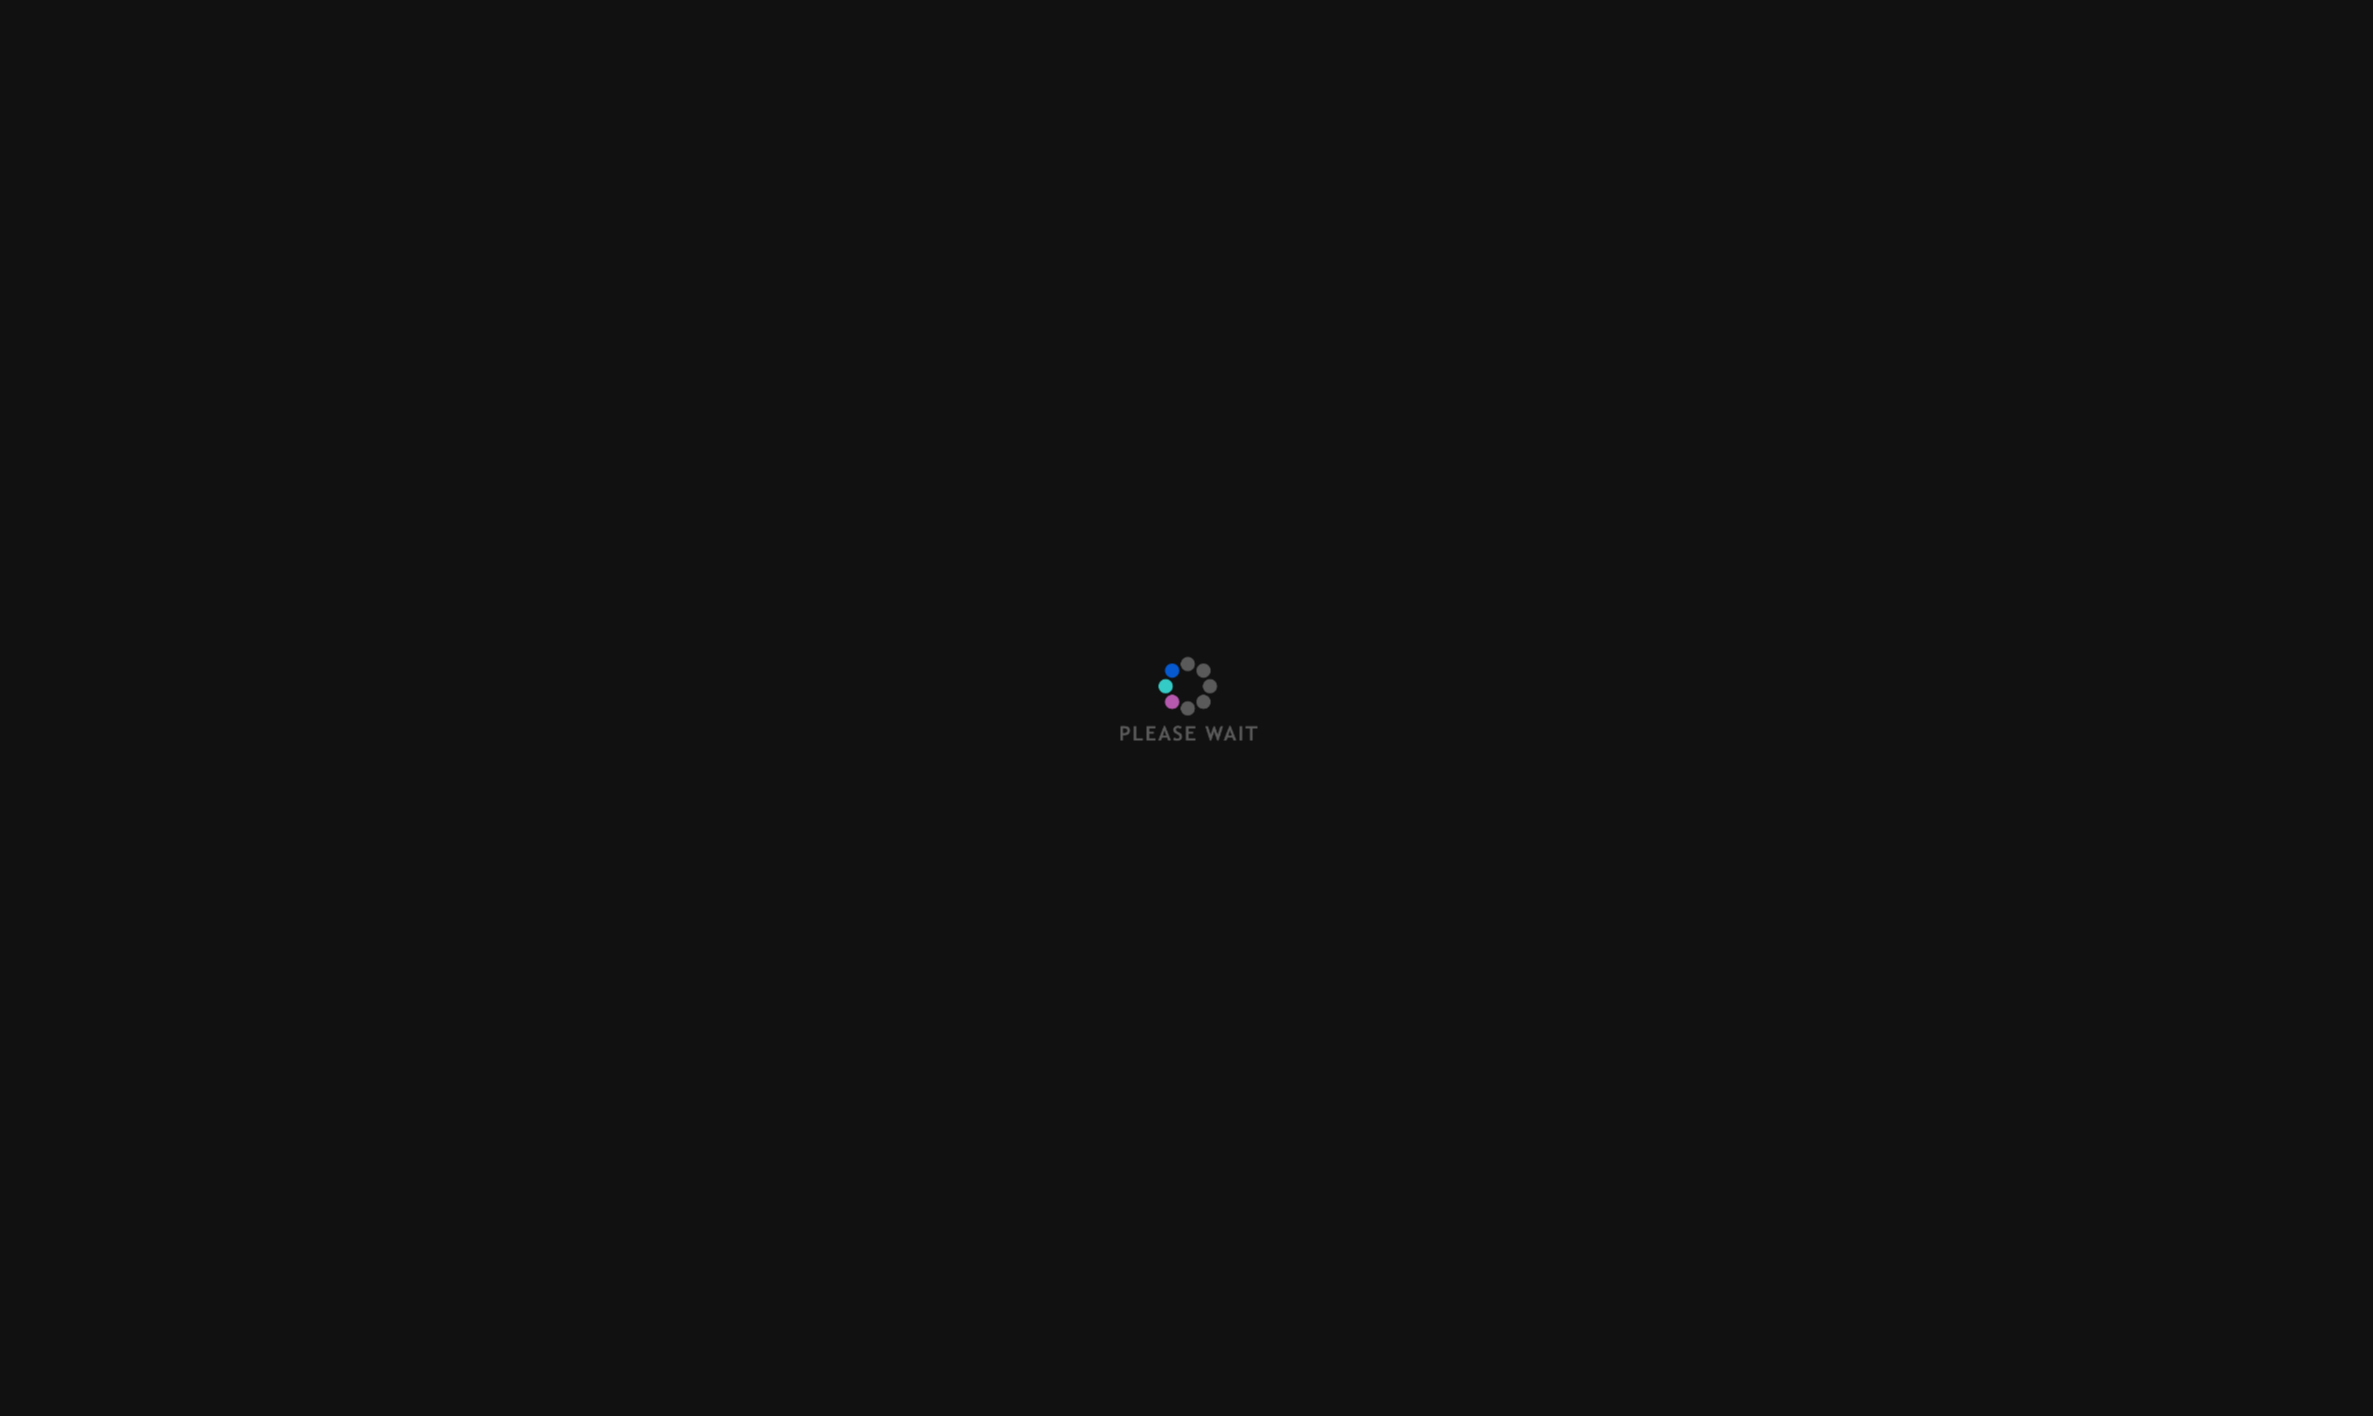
async function draw(canvas) {
	canvas.width = 2373;
	canvas.height = 1416;
	const c = canvas.getContext('2d');
	c.miterLimit = 4;
	c.fontKerning = 'normal';
	async function loadImage(src) {
		const img = new Image();
		img.src = src;
		await img.decode();
		return img;
	}

	c.fillStyle = '#111';
	c.fillRect(0, 0, 2373, 1416);
	c.drawImage(await loadImage('img1.png'), 1120, 656, 138, 86);
}

draw(document.querySelector('canvas'));
